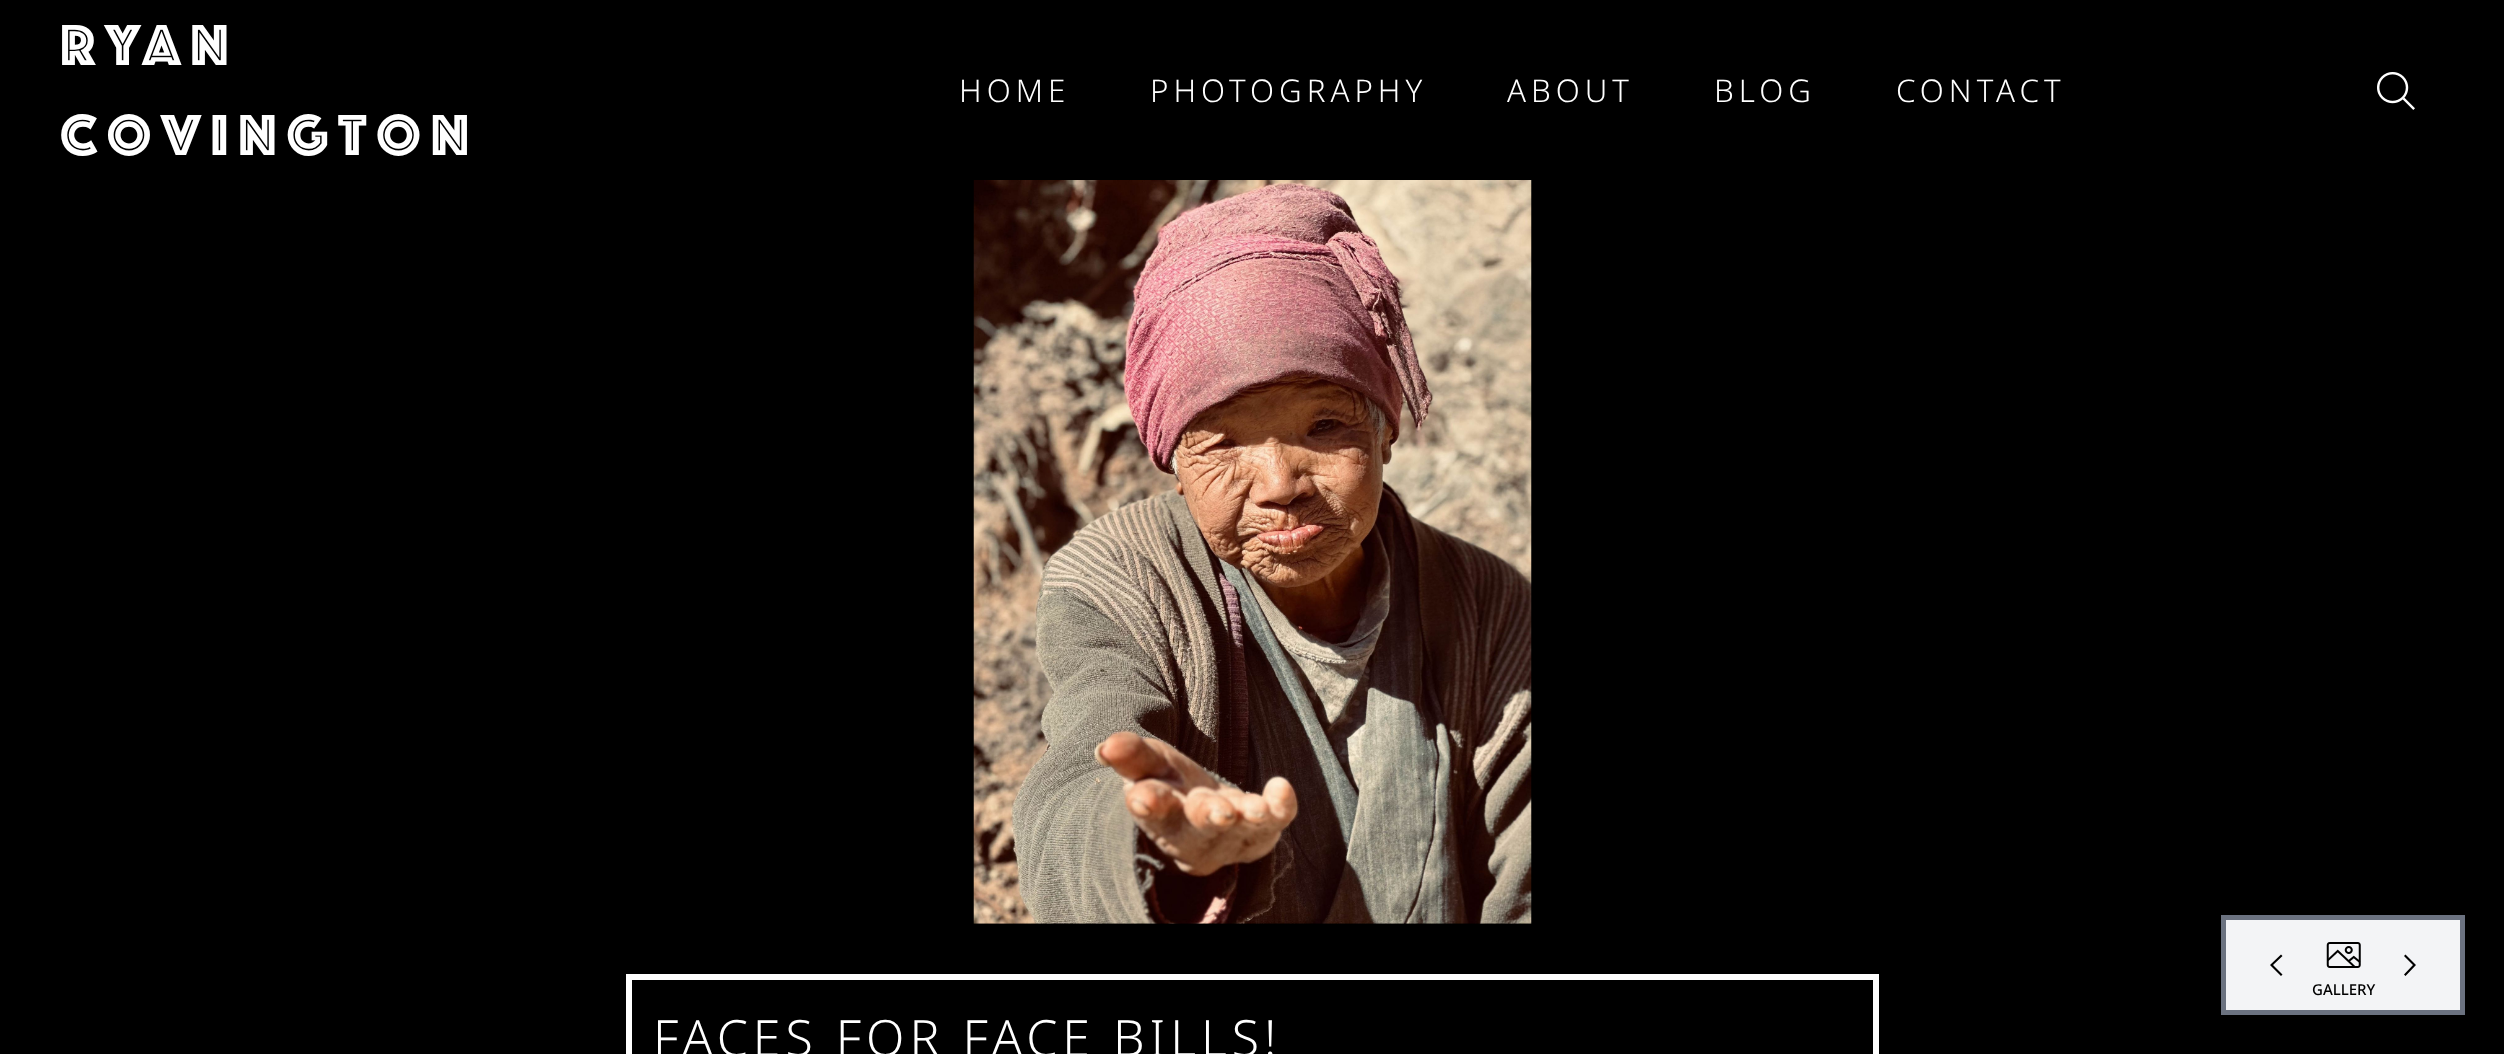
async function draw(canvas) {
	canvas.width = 2504;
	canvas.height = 1054;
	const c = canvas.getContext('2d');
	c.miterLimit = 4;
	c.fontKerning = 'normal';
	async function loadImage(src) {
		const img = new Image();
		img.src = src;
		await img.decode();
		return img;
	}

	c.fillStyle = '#000';
	c.fillRect(0, 0, 2504, 1054);
	c.letterSpacing = '10px';
	c.font = '60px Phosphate';
	c.fillStyle = '#fff';
	c.fillText('Ryan', 60, 65);
	c.fillText('Covington', 60, 155);
	c.letterSpacing = '5px';
	c.font = '300 31.25px Noto Sans';
	for (const [text, x, y] of [
		['HOME', 959, 102],
		['PHOTOGRAPHY', 1150, 102],
		['ABOUT', 1507, 102],
		['BLOG', 1714, 102],
		['CONTACT', 1896, 102],
	]) {
		c.fillText(text, x, y);
	}
	c.drawImage(await loadImage('img1.png'), 2377, 72, 38, 38);
	c.drawImage(await loadImage('img2.png'), 973, 180, 559, 744);
	c.fillStyle = '#f3f4f6';
	c.beginPath();
	c.rect(2223.5, 917.5, 239, 95);
	c.fill();
	c.strokeStyle = '#6b7280';
	c.lineWidth = 5;
	c.stroke();
	c.fillStyle = '#000';
	c.beginPath();
	c.moveTo(2281, 976);
	c.lineTo(2270, 965);
	c.lineTo(2281, 954.5);
	c.lineTo(2282.5, 956);
	c.lineTo(2273, 965);
	c.lineTo(2282.5, 974.5);
	c.lineTo(2281, 976);
	c.fill();
	c.beginPath();
	c.moveTo(2405.5, 976);
	c.lineTo(2404, 974.5);
	c.lineTo(2413, 965);
	c.lineTo(2404, 956);
	c.lineTo(2405.5, 954.5);
	c.lineTo(2416, 965);
	c.lineTo(2405.5, 976);
	c.fill();
	c.drawImage(await loadImage('img3.png'), 2326, 942, 35, 26);
	c.letterSpacing = '0px';
	c.font = '500 15px Noto Sans';
	c.fillText('GALLERY', 2312, 995);
	c.strokeStyle = '#fff';
	c.lineWidth = 6;
	c.strokeRect(629, 977, 1247, 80);
	c.letterSpacing = '5px';
	c.font = '300 50px Noto Sans';
	c.fillStyle = '#fff';
	c.fillText('FACES FOR FACE BILLS!', 653, 1056);
}

draw(document.querySelector('canvas'));
